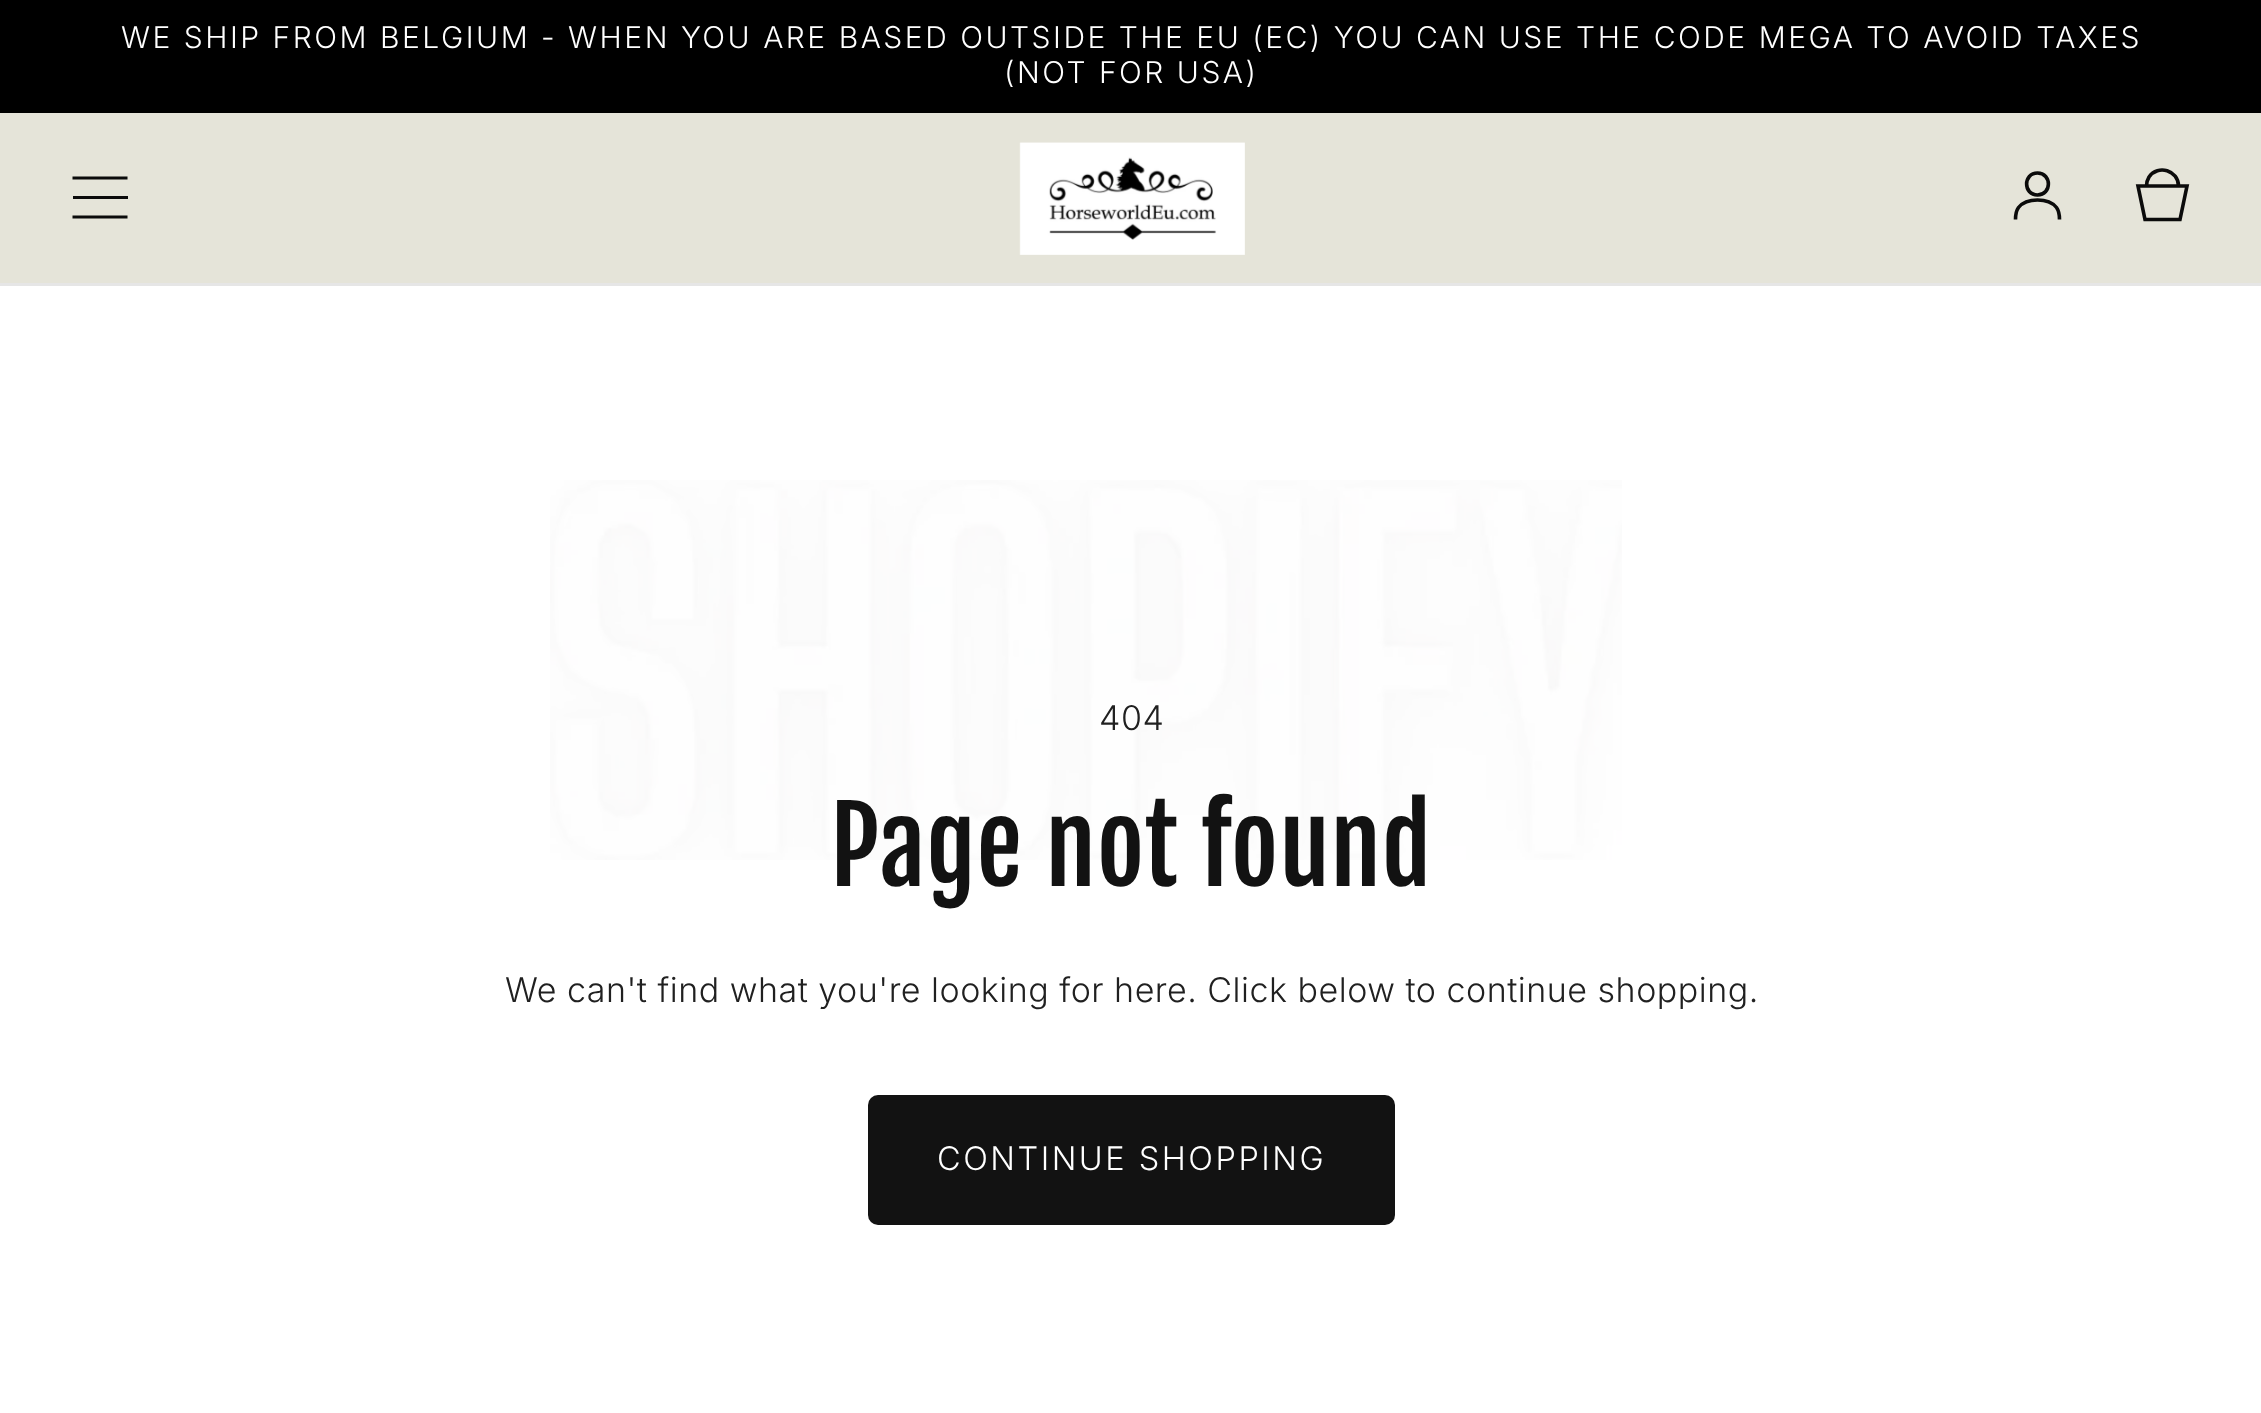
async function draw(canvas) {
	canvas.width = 2261;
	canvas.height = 1413;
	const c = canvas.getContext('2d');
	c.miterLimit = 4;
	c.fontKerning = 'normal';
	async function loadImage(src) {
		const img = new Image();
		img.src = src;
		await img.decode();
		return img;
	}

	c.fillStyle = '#fff';
	c.fillRect(0, 0, 2261, 1413);
	c.fillStyle = '#000';
	c.fillRect(0, 0, 2261, 113);
	c.letterSpacing = '2.5px';
	c.font = '300 30px Inter';
	c.fillStyle = '#fff';
	c.fillText('WE SHIP FROM BELGIUM - WHEN YOU ARE BASED OUTSIDE THE EU (EC) YOU CAN USE THE CODE MEGA TO AVOID TAXES', 121, 48);
	c.fillText('(NOT FOR USA)', 1004, 83);
	c.fillStyle = '#e5e4d9';
	c.fillRect(0, 113, 2261, 170);
	c.fillStyle = '#e6e6e6';
	c.fillRect(0, 283, 2261, 3);
	c.beginPath();
	c.moveTo(72.5, 178);
	c.lineTo(127.5, 178);
	c.moveTo(72.5, 217);
	c.lineTo(127.5, 217);
	c.strokeStyle = '#0b0b0b';
	c.lineWidth = 3;
	c.stroke();
	c.fillStyle = '#0b0b0b';
	c.fillRect(73, 196, 55, 3);
	c.drawImage(await loadImage('img1.png'), 1019, 142, 226, 113);
	c.beginPath();
	c.moveTo(2037.5, 195);
	c.bezierCurveTo(2052, 195, 2052, 173, 2037.5, 173);
	c.bezierCurveTo(2023, 173, 2023, 195, 2037.5, 195);
	c.closePath();
	c.moveTo(2059.5, 219.5);
	c.bezierCurveTo(2059.5, 215, 2059, 211, 2056.5, 207.5);
	c.bezierCurveTo(2048.5, 197.5, 2026.5, 197.5, 2018.5, 207.5);
	c.bezierCurveTo(2016, 211, 2015.5, 215, 2015.5, 219.5);
	c.lineWidth = 3.6;
	c.stroke();
	c.beginPath();
	c.moveTo(2187, 186);
	c.lineTo(2138, 186);
	c.lineTo(2145, 219.5);
	c.lineTo(2180, 219.5);
	c.closePath();
	c.moveTo(2178.5, 186);
	c.bezierCurveTo(2178.5, 170.5, 2158, 164, 2149, 177);
	c.bezierCurveTo(2147.5, 179.5, 2146.5, 183, 2146.5, 186);
	c.stroke();
	c.drawImage(await loadImage('img2.png'), 550, 480, 1072, 380);
	c.letterSpacing = '0.5px';
	c.font = '300 34px Inter';
	c.fillStyle = '#202020';
	c.fillText('404', 1099, 730);
	c.font = '103px Fjalla One';
	c.fillStyle = '#121212';
	c.fillText('Page not found', 830, 886);
	c.font = '300 34px Inter';
	c.fillStyle = '#202020';
	c.fillText('We can\'t find what you\'re looking for here. Click below to continue shopping.', 505, 1002);
	c.fillStyle = '#121212';
	c.beginPath();
	c.roundRect(868, 1095, 527, 130, 10);
	c.fill();
	c.letterSpacing = '2.5px';
	c.font = '300 32.5px Inter';
	c.fillStyle = '#fff';
	c.fillText('CONTINUE SHOPPING', 937, 1170);
}

draw(document.querySelector('canvas'));
